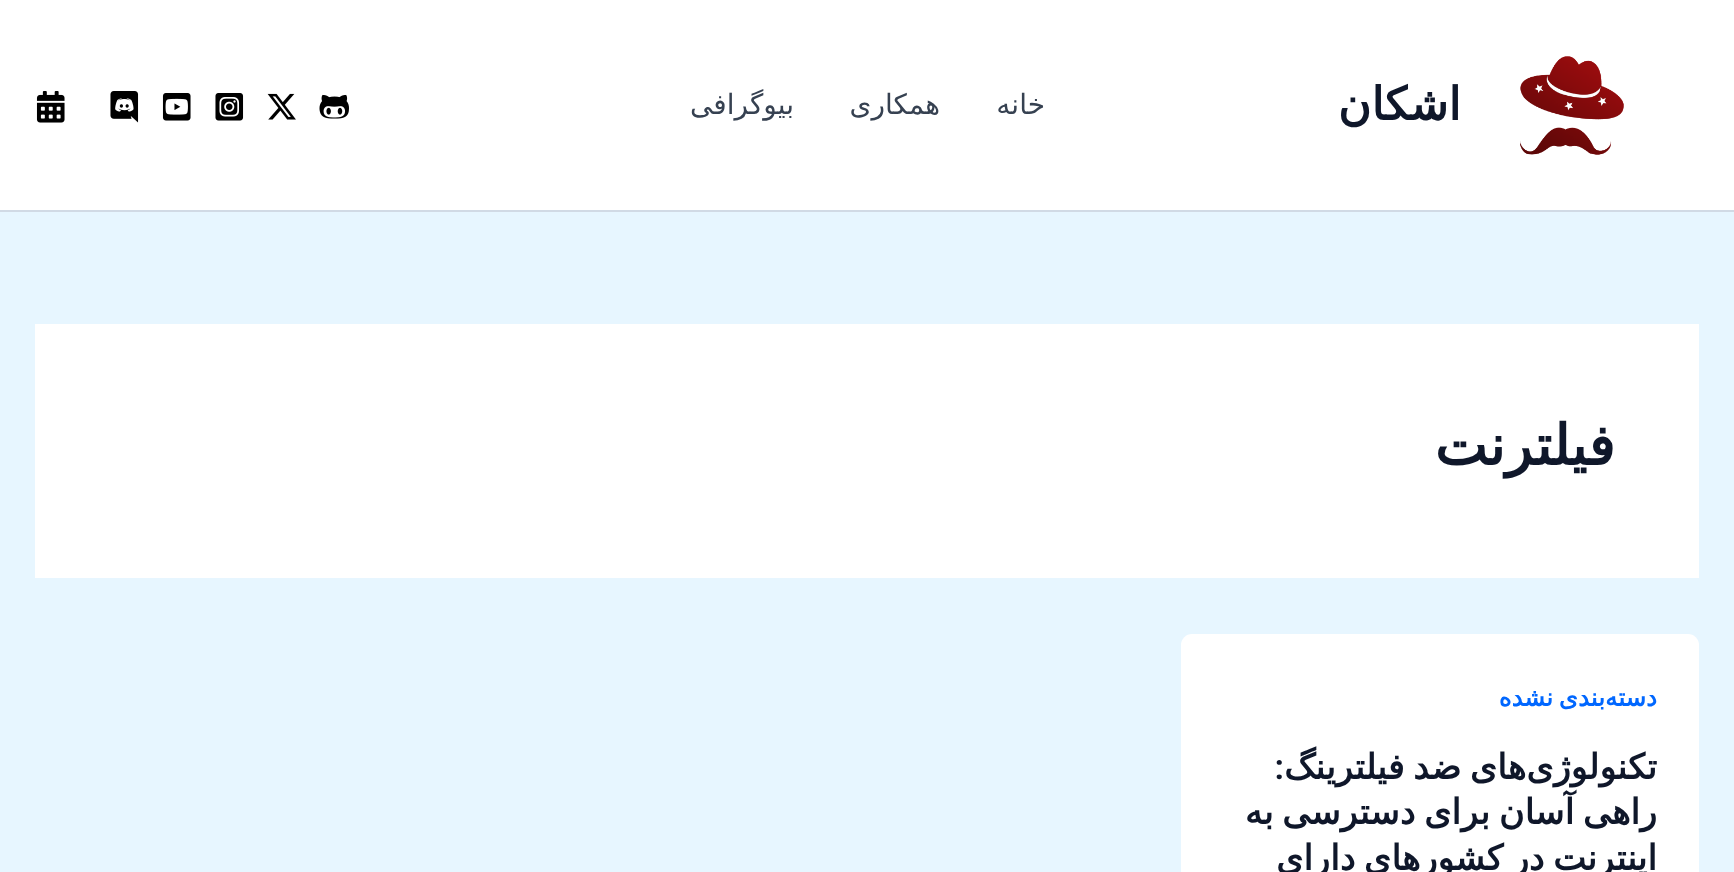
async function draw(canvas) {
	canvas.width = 1734;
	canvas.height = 872;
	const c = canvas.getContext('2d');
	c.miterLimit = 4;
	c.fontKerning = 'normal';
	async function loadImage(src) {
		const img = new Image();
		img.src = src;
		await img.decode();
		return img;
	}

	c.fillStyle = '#e7f6ff';
	c.fillRect(0, 0, 1734, 872);
	c.fillStyle = '#fff';
	c.fillRect(0, 0, 1734, 210);
	c.fillStyle = '#d1dae5';
	c.fillRect(0, 210, 1734, 2);
	c.drawImage(await loadImage('img1.png'), 1520, 56, 104, 99);
	c.direction = 'rtl';
	c.font = 'bold 45.5px DejaVu Sans';
	c.fillStyle = '#0f172a';
	c.fillText('اشکان', 1461, 120);
	c.font = '28px DejaVu Sans';
	c.fillStyle = '#364151';
	for (const [text, x, y] of [
		['خانه', 1045, 114],
		['همکاری', 940, 114],
		['بیوگرافی', 794, 114],
	]) {
		c.fillText(text, x, y);
	}
	c.drawImage(await loadImage('img2.png'), 319, 94, 30, 25);
	c.drawImage(await loadImage('img3.png'), 267, 93, 29, 27);
	c.drawImage(await loadImage('img4.png'), 215, 93, 29, 28);
	c.drawImage(await loadImage('img5.png'), 162, 93, 29, 28);
	c.drawImage(await loadImage('img6.png'), 110, 91, 29, 32);
	c.drawImage(await loadImage('img7.png'), 36, 91, 29, 32);
	c.fillStyle = '#fff';
	c.fillRect(35, 324, 1664, 254);
	c.font = 'bold 56px DejaVu Sans';
	c.fillStyle = '#0f172a';
	c.fillText('فیلترنت', 1615, 465);
	c.fillStyle = '#fff';
	c.beginPath();
	c.roundRect(1181, 634, 518, 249, 11);
	c.fill();
	c.wordSpacing = '-2px';
	c.font = 'bold 24.5px DejaVu Sans';
	c.fillStyle = '#0067ff';
	c.fillText('دسته‌بندی نشده', 1657, 706);
	c.wordSpacing = '-2.5px';
	c.font = 'bold 35px DejaVu Sans';
	c.fillStyle = '#0f172a';
	c.fillText('تکنولوژی‌های ضد فیلترینگ', 1657, 779);
	c.wordSpacing = '0px';
	c.font = '600 35px Roboto';
	c.fillText(':', 1284, 779);
	c.wordSpacing = '-2.5px';
	c.font = 'bold 35px DejaVu Sans';
	c.fillText('راهی آسان برای دسترسی به', 1657, 824);
	c.fillText('اینترنت در کشورهای دارای', 1657, 870);
}

draw(document.querySelector('canvas'));
